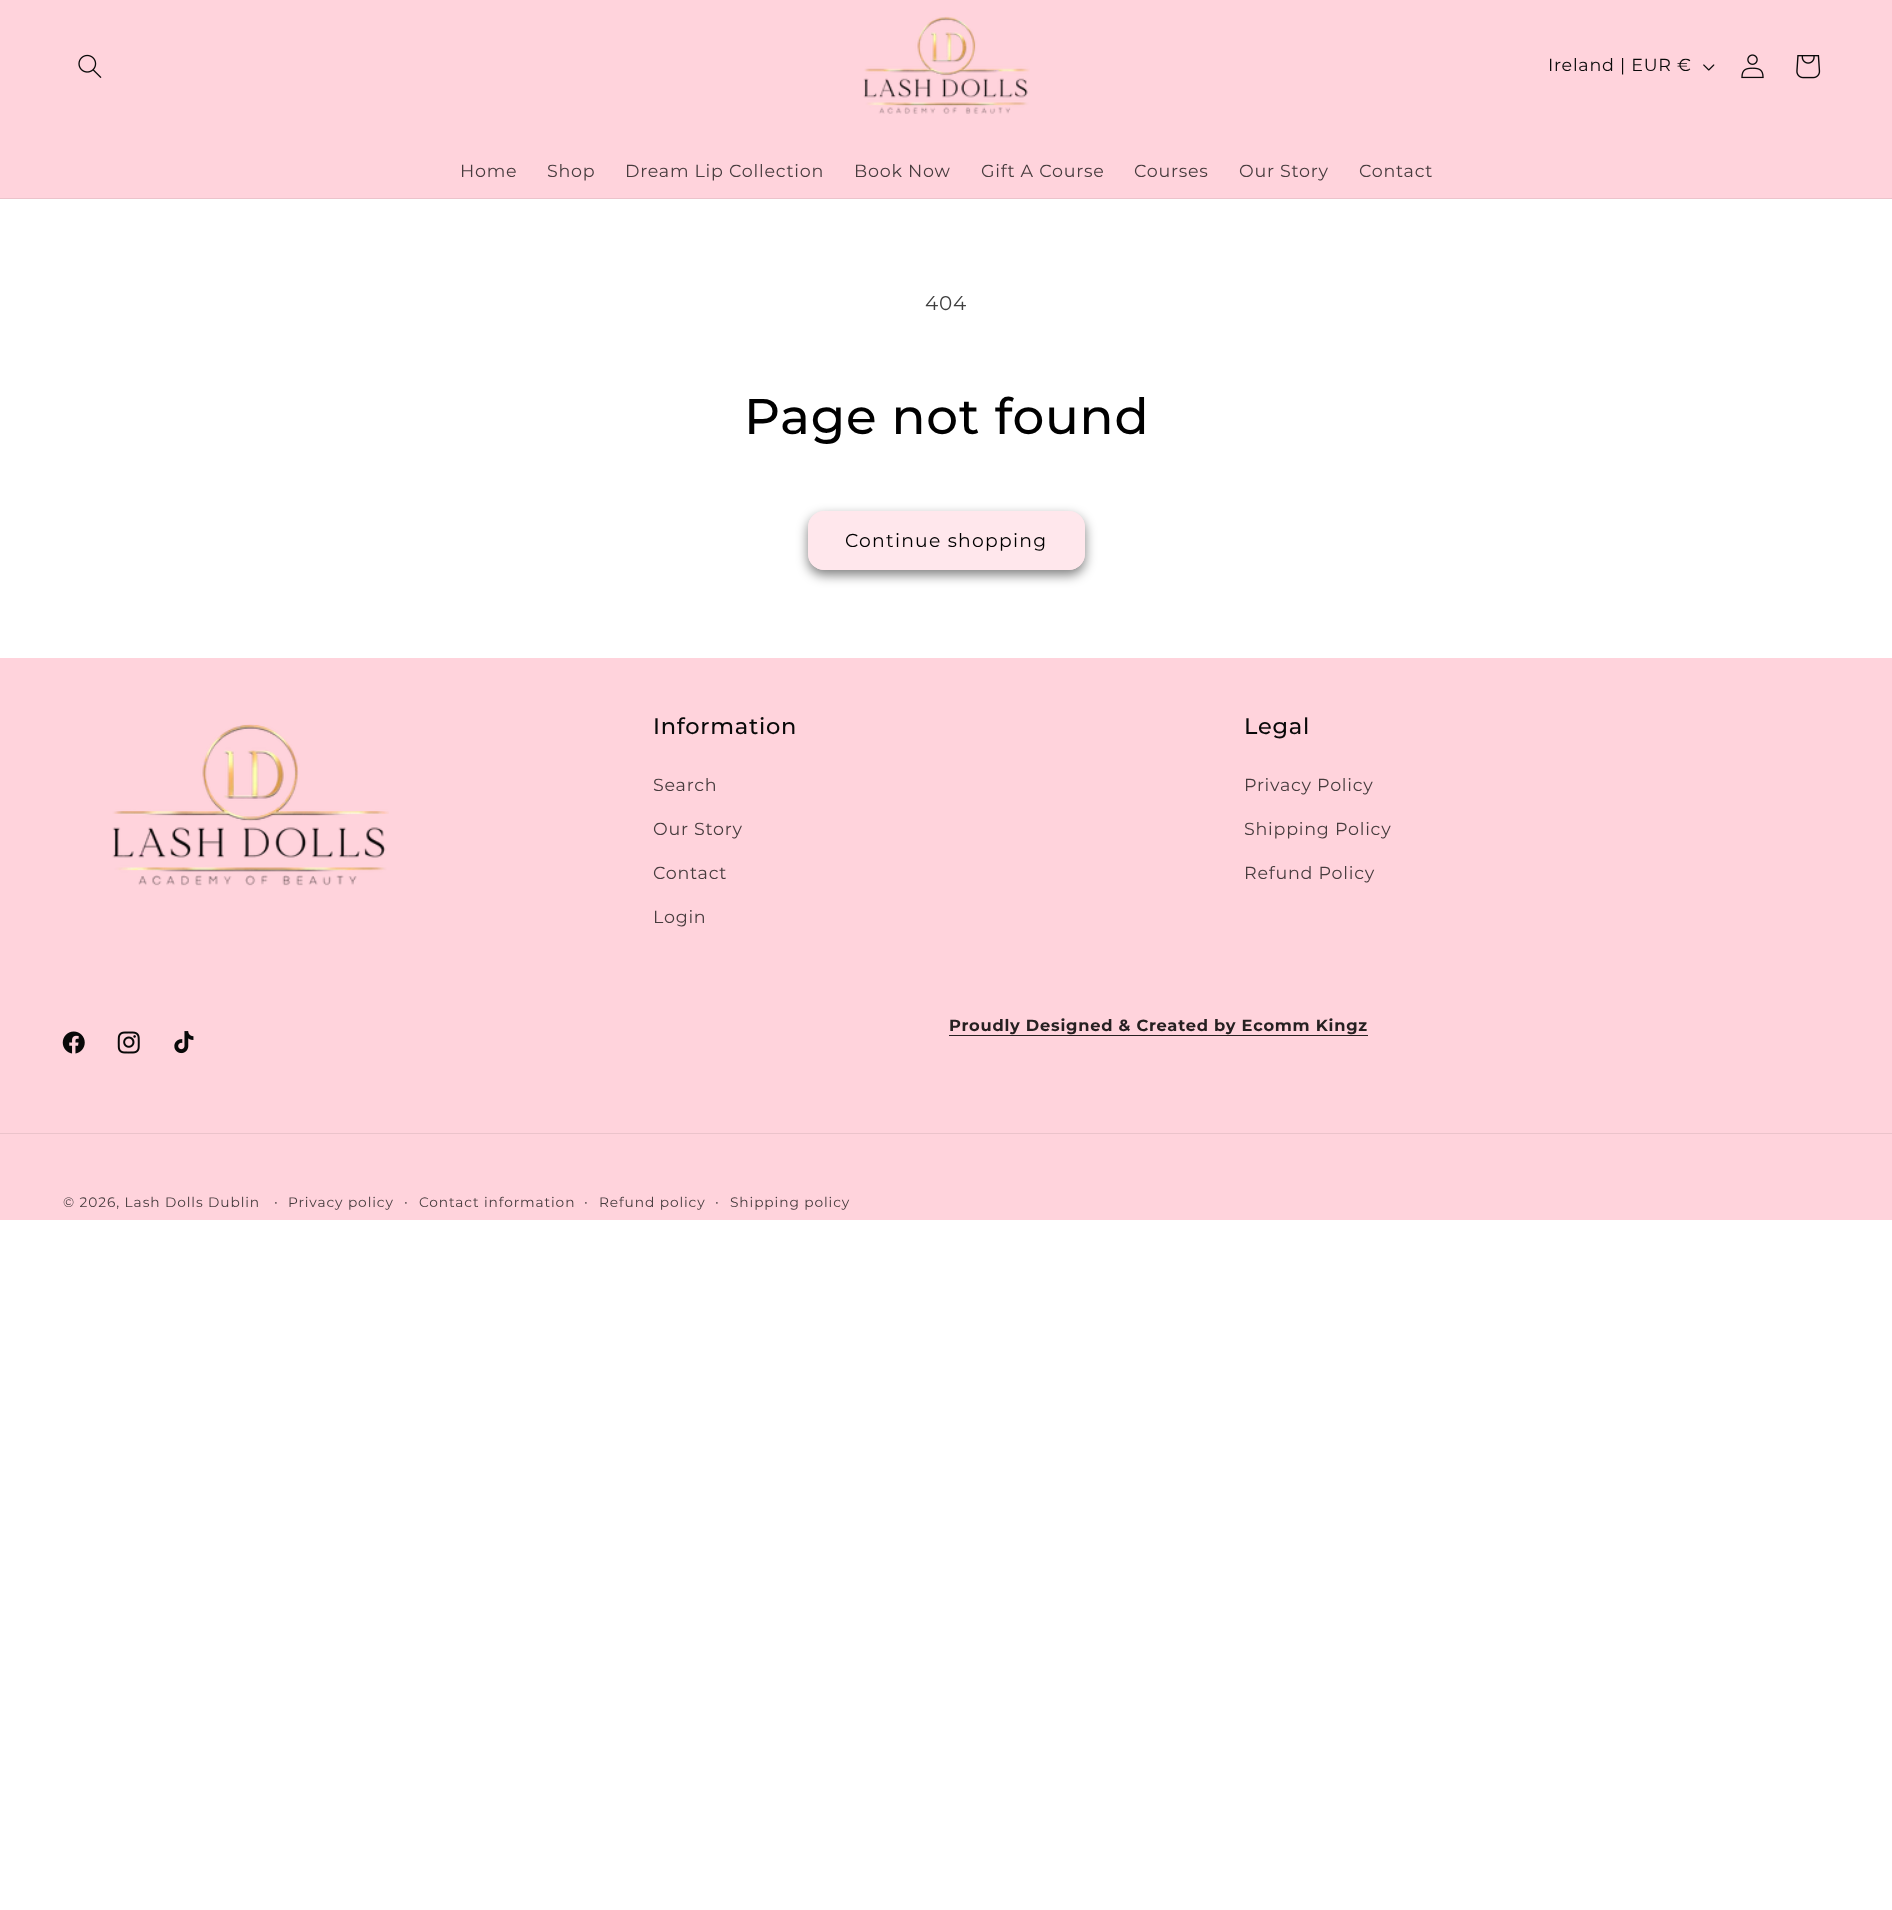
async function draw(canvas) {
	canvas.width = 1892;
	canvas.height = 1910;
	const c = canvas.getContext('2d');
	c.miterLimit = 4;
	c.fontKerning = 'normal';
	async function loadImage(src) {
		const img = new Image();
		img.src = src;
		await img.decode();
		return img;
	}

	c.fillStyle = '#fff';
	c.fillRect(0, 0, 1892, 1910);
	c.fillStyle = '#ffd3dc';
	c.fillRect(0, 0, 1892, 198);
	c.fillStyle = '#ebc3cb';
	c.fillRect(0, 198, 1892, 1);
	c.drawImage(await loadImage('img1.png'), 78, 54, 24, 24);
	c.drawImage(await loadImage('img2.png'), 863, 16, 167, 98);
	c.letterSpacing = '0.75px';
	c.font = '17.5px Montserrat';
	c.fillStyle = '#090909';
	c.fillText('Ireland | EUR €', 1548, 71);
	c.drawImage(await loadImage('img3.png'), 1703, 64, 12, 7);
	c.drawImage(await loadImage('img4.png'), 1741, 54, 23, 25);
	c.drawImage(await loadImage('img5.png'), 1796, 55, 25, 24);
	c.fillStyle = '#473c3e';
	for (const [text, x, y] of [
		['Home', 460, 177],
		['Shop', 547, 177],
		['Dream Lip Collection', 625, 177],
		['Book Now', 854, 177],
		['Gift A Course', 981, 177],
		['Courses', 1134, 177],
		['Our Story', 1239, 177],
		['Contact', 1359, 177],
	]) {
		c.fillText(text, x, y);
	}
	c.font = '20px Montserrat';
	c.fillStyle = '#404040';
	c.fillText('404', 925, 310);
	c.font = '500 50px Montserrat';
	c.fillStyle = '#000';
	c.fillText('Page not found', 744, 434);
	c.fillStyle = '#00000080';
	c.filter = 'blur(6px)';
	c.beginPath();
	c.roundRect(808, 516, 277, 59, 16);
	c.fill();
	c.filter = 'none';
	c.fillStyle = '#ffe7ec';
	c.beginPath();
	c.roundRect(808, 511, 277, 59, 16);
	c.fill();
	c.beginPath();
	c.roundRect(808.5, 511.5, 276, 58, 15.5);
	c.strokeStyle = '#ffe7ec';
	c.stroke();
	c.letterSpacing = '1.25px';
	c.font = '18.75px Montserrat';
	c.fillStyle = '#000';
	c.fillText('Continue shopping', 845, 547);
	c.fillStyle = '#ffd3dc';
	c.fillRect(0, 658, 1892, 562);
	c.drawImage(await loadImage('img6.png'), 112, 724, 277, 162);
	c.letterSpacing = '0.75px';
	c.font = '500 22.5px Montserrat';
	c.fillStyle = '#090909';
	c.fillText('Information', 653, 734);
	c.font = '17.5px Montserrat';
	c.fillStyle = '#473c3e';
	for (const [text, x, y] of [
		['Search', 653, 791],
		['Our Story', 653, 835],
		['Contact', 653, 879],
		['Login', 653, 923],
	]) {
		c.fillText(text, x, y);
	}
	c.font = '500 22.5px Montserrat';
	c.fillStyle = '#090909';
	c.fillText('Legal', 1244, 734);
	c.font = '17.5px Montserrat';
	c.fillStyle = '#473c3e';
	for (const [text, x, y] of [
		['Privacy Policy', 1244, 791],
		['Shipping Policy', 1244, 835],
		['Refund Policy', 1244, 879],
	]) {
		c.fillText(text, x, y);
	}
	c.font = 'bold 16.25px Montserrat';
	c.fillStyle = '#262021';
	c.fillText('Proudly Designed & Created by Ecomm Kingz', 949, 1031);
	c.fillRect(949, 1035, 419, 1);
	c.drawImage(await loadImage('img7.png'), 62, 1031, 23, 23);
	c.drawImage(await loadImage('img8.png'), 117, 1031, 23, 23);
	c.drawImage(await loadImage('img9.png'), 174, 1031, 20, 23);
	c.fillStyle = '#ebc3cb';
	c.fillRect(0, 1133, 1892, 1);
	c.letterSpacing = '0.9px';
	c.font = '13.75px Montserrat';
	c.fillStyle = '#473c3e';
	c.fillText('© 2026, Lash Dolls Dublin', 63, 1207);
	c.font = '15px Montserrat';
	c.fillText('·', 274, 1207);
	c.font = '13.75px Montserrat';
	c.fillText('Privacy policy', 288, 1207);
	c.font = '15px Montserrat';
	c.fillText('·', 404, 1207);
	c.font = '13.75px Montserrat';
	c.fillText('Contact information', 419, 1207);
	c.font = '15px Montserrat';
	c.fillText('·', 584, 1207);
	c.font = '13.75px Montserrat';
	c.fillText('Refund policy', 599, 1207);
	c.font = '15px Montserrat';
	c.fillText('·', 715, 1207);
	c.font = '13.75px Montserrat';
	c.fillText('Shipping policy', 730, 1207);
}

draw(document.querySelector('canvas'));
